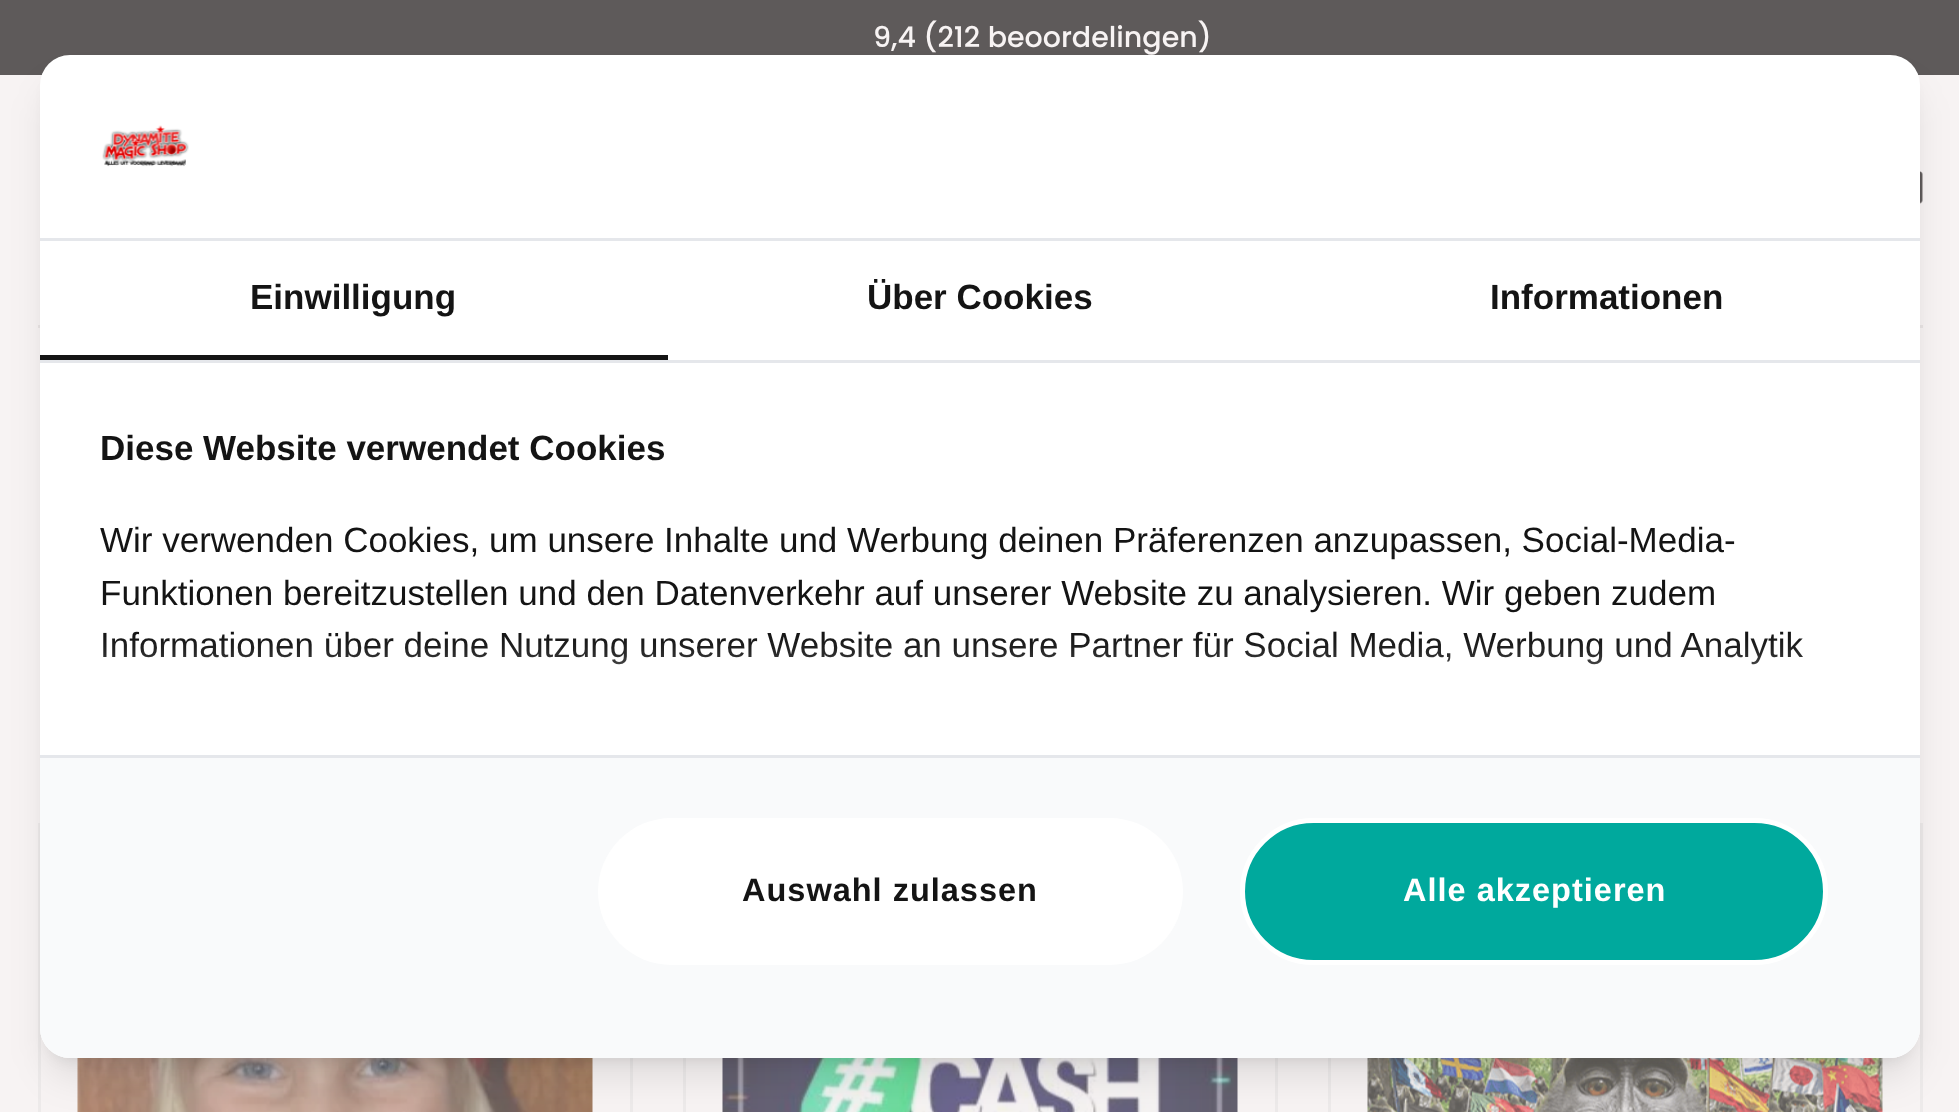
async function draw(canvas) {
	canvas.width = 1959;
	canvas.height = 1112;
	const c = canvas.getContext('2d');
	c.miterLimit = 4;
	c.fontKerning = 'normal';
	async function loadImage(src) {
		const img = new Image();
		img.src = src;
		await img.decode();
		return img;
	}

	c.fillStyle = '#f7f3f3';
	c.fillRect(0, 0, 1959, 1112);
	c.fillStyle = '#5e5a5a';
	c.fillRect(0, 0, 1959, 75);
	c.font = '500 28.5px Poppins';
	c.fillStyle = '#f7f3f3';
	c.fillText('9,4 (212 beoordelingen)', 873, 47);
	c.drawImage(await loadImage('img1.png'), 1920, 171, 3, 33);
	c.fillStyle = '#e9e4e4';
	c.fillRect(38, 325, 1885, 3);
	c.strokeStyle = '#edeaea';
	c.lineWidth = 3;
	c.strokeRect(39.5, 824.5, 592, 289);
	c.drawImage(await loadImage('img2.png'), 77, 1058, 516, 54);
	c.strokeRect(684.5, 824.5, 592, 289);
	c.drawImage(await loadImage('img3.png'), 722, 1058, 516, 54);
	c.strokeRect(1329.5, 824.5, 592, 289);
	c.drawImage(await loadImage('img4.png'), 1367, 1058, 516, 54);
	c.fillStyle = '#0000001a';
	c.filter = 'blur(7.5px)';
	c.beginPath();
	c.roundRect(50, 75, 1860, 983, 20);
	c.fill();
	c.filter = 'none';
	c.filter = 'blur(19px)';
	c.beginPath();
	c.roundRect(48, 88, 1865, 987, 23);
	c.fill();
	c.filter = 'none';
	c.fillStyle = '#fff';
	c.beginPath();
	c.roundRect(40, 55, 1880, 1003, 30);
	c.fill();
	c.fillStyle = '#e5e7eb';
	c.fillRect(40, 238, 1880, 3);
	c.drawImage(await loadImage('img5.png'), 102, 125, 87, 42);
	c.fillRect(40, 360, 1880, 3);
	c.fillStyle = '#141414';
	c.fillRect(40, 355, 628, 5);
	c.font = 'bold 35px Liberation Sans';
	for (const [text, x, y] of [
		['Einwilligung', 250, 309],
		['Über Cookies', 867, 309],
		['Informationen', 1490, 309],
		['Diese Website verwendet Cookies', 100, 460],
	]) {
		c.fillText(text, x, y);
	}
	c.font = '35px Liberation Sans';
	for (const [text, x, y] of [
		['Wir verwenden Cookies, um unsere Inhalte und Werbung deinen Präferenzen anzupassen, Social-Media-', 100, 552],
		['Funktionen bereitzustellen und den Datenverkehr auf unserer Website zu analysieren. Wir geben zudem', 100, 605],
		['Informationen über deine Nutzung unserer Website an unsere Partner für Social Media, Werbung und Analytik', 100, 657],
	]) {
		c.fillText(text, x, y);
	}
	c.save();
	c.beginPath();
	c.roundRect(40, 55, 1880, 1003, 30);
	c.clip();
	c.fillStyle = '#fff';
	c.filter = 'blur(25px)';
	c.beginPath();
	c.rect(20, 685, 1920, 343);
	c.fill();
	c.filter = 'none';
	c.restore();
	c.fillStyle = '#f9fafb';
	c.beginPath();
	c.roundRect(40, 755, 1880, 303, [0, 0, 30, 30]);
	c.fill();
	c.fillStyle = '#e5e7eb';
	c.fillRect(40, 755, 1880, 3);
	c.fillStyle = '#fff';
	c.beginPath();
	c.roundRect(598, 818, 585, 147, 73.5);
	c.fill();
	c.letterSpacing = '1px';
	c.font = 'bold 32.5px Liberation Sans';
	c.fillStyle = '#141414';
	c.fillText('Auswahl zulassen', 742, 901);
	c.fillStyle = '#00a99d';
	c.beginPath();
	c.roundRect(1242.5, 820.5, 583, 142, 71);
	c.fill();
	c.strokeStyle = '#fff';
	c.lineWidth = 5;
	c.stroke();
	c.fillStyle = '#fff';
	c.fillText('Alle akzeptieren', 1403, 901);
}

draw(document.querySelector('canvas'));
